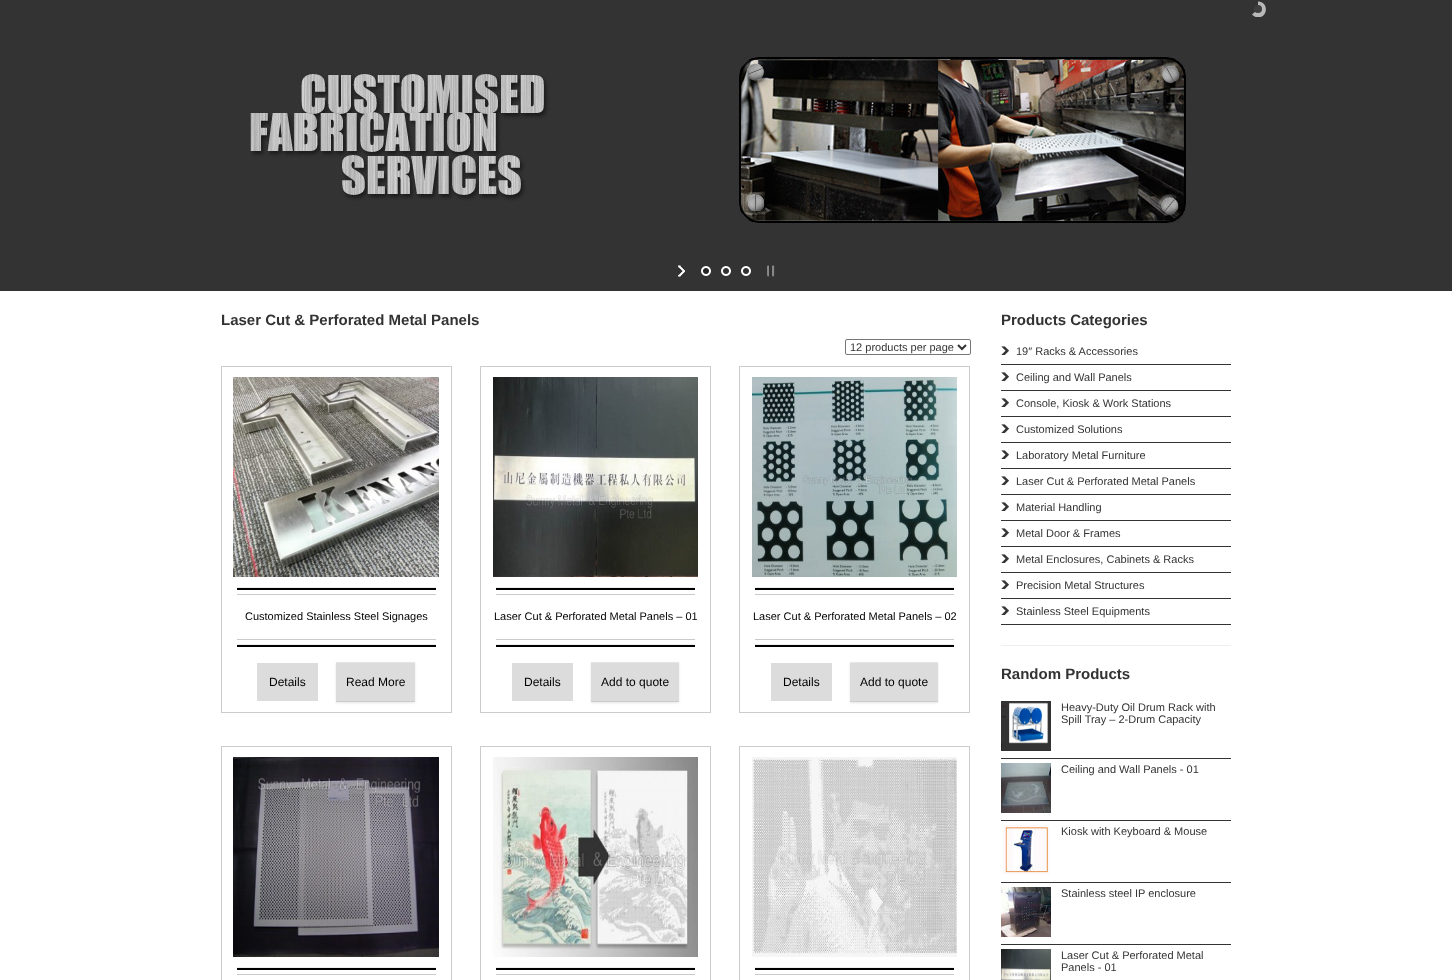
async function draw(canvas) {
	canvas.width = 1452;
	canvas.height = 980;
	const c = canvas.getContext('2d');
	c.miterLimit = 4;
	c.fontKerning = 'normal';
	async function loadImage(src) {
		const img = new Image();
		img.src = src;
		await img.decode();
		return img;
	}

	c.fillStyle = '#fff';
	c.fillRect(0, 0, 1452, 980);
	c.fillStyle = '#333';
	c.fillRect(0, 0, 1452, 291);
	c.save();
	c.beginPath();
	c.rect(1258, 1, 8, 16);
	c.clip();
	c.fillStyle = '#b8b8b8';
	c.beginPath();
	c.moveTo(1258, 17.5);
	c.bezierCurveTo(1247.5, 17.5, 1247.5, 1.5, 1258, 1.5);
	c.bezierCurveTo(1268.5, 1.5, 1268.5, 17.5, 1258, 17.5);
	c.closePath();
	c.fill();
	c.restore();
	c.save();
	c.beginPath();
	c.rect(1250, 1, 8, 16);
	c.clip();
	c.fillStyle = '#b8b8b8';
	c.beginPath();
	c.moveTo(1264, 4);
	c.bezierCurveTo(1271, 12, 1259, 22.5, 1252, 14.5);
	c.closePath();
	c.fill();
	c.restore();
	c.fillStyle = '#3e3e3e';
	c.beginPath();
	c.arc(1258, 9, 4, 0, 2 * Math.PI);
	c.fill();
	c.drawImage(await loadImage('img1.png'), 250, 56, 941, 168);
	c.drawImage(await loadImage('img2.png'), 678, 265, 7, 12);
	c.drawImage(await loadImage('img3.png'), 701, 266, 10, 10);
	c.drawImage(await loadImage('img4.png'), 721, 266, 10, 10);
	c.drawImage(await loadImage('img4.png'), 741, 266, 10, 10);
	c.drawImage(await loadImage('img5.png'), 767, 265, 8, 12);
	c.font = 'bold 15px Liberation Sans';
	c.fillStyle = '#333';
	c.fillText('Laser Cut & Perforated Metal Panels', 221, 325);
	c.beginPath();
	c.roundRect(845.5, 339.5, 125, 15, 1.5);
	c.strokeStyle = '#767676';
	c.stroke();
	c.beginPath();
	c.moveTo(958, 345);
	c.lineTo(962, 349);
	c.lineTo(966, 345);
	c.strokeStyle = '#333';
	c.lineWidth = 2;
	c.stroke();
	c.font = '11px Liberation Sans';
	c.fillText('12 products per page', 850, 351);
	c.strokeStyle = '#ccc';
	c.lineWidth = 1;
	c.strokeRect(221.5, 366.5, 230, 346);
	c.drawImage(await loadImage('img6.png'), 233, 377, 206, 200);
	for (const [x, y, w, h, color] of [
		[237, 587, 199, 1, '#eee'],
		[237, 588, 199, 2, '#000'],
		[237, 594, 199, 1, '#cacaca'],
	]) {
		c.fillStyle = color;
		c.fillRect(x, y, w, h);
	}
	c.fillStyle = '#000';
	c.fillText('Customized Stainless Steel Signages', 245, 620);
	for (const [x, y, w, h, color] of [
		[237, 639, 199, 1, '#cacaca'],
		[237, 644, 199, 1, '#eee'],
		[237, 645, 199, 2, '#000'],
		[257, 663, 61, 38, '#dcdcdc'],
	]) {
		c.fillStyle = color;
		c.fillRect(x, y, w, h);
	}
	c.font = '12px Liberation Sans';
	c.fillStyle = '#000';
	c.fillText('Details', 269, 686);
	c.fillStyle = '#0000001a';
	c.filter = 'blur(1px)';
	c.beginPath();
	c.rect(336, 663, 79, 40);
	c.fill();
	c.filter = 'none';
	for (const [x, y, w, h, color] of [
		[336, 663, 79, 38, '#dcdcdc'],
		[336, 662, 79, 1, '#e7e7e7'],
		[336, 701, 79, 1, '#ccc'],
	]) {
		c.fillStyle = color;
		c.fillRect(x, y, w, h);
	}
	c.fillStyle = '#000';
	c.fillText('Read More', 346, 686);
	c.strokeRect(480.5, 366.5, 230, 346);
	c.drawImage(await loadImage('img7.png'), 493, 377, 205, 200);
	for (const [x, y, w, h, color] of [
		[496, 587, 199, 1, '#eee'],
		[496, 588, 199, 2, '#000'],
		[496, 594, 199, 1, '#cacaca'],
	]) {
		c.fillStyle = color;
		c.fillRect(x, y, w, h);
	}
	c.font = '11px Liberation Sans';
	c.fillStyle = '#000';
	c.fillText('Laser Cut & Perforated Metal Panels – 01', 494, 620);
	for (const [x, y, w, h, color] of [
		[496, 639, 199, 1, '#cacaca'],
		[496, 644, 199, 1, '#eee'],
		[496, 645, 199, 2, '#000'],
		[512, 663, 61, 38, '#dcdcdc'],
	]) {
		c.fillStyle = color;
		c.fillRect(x, y, w, h);
	}
	c.font = '12px Liberation Sans';
	c.fillStyle = '#000';
	c.fillText('Details', 524, 686);
	c.fillStyle = '#0000001a';
	c.filter = 'blur(1px)';
	c.beginPath();
	c.rect(591, 663, 88, 40);
	c.fill();
	c.filter = 'none';
	for (const [x, y, w, h, color] of [
		[591, 663, 88, 38, '#dcdcdc'],
		[591, 662, 88, 1, '#e7e7e7'],
		[591, 701, 88, 1, '#ccc'],
	]) {
		c.fillStyle = color;
		c.fillRect(x, y, w, h);
	}
	c.fillStyle = '#000';
	c.fillText('Add to quote', 601, 686);
	c.strokeRect(739.5, 366.5, 230, 346);
	c.drawImage(await loadImage('img8.png'), 752, 377, 205, 200);
	for (const [x, y, w, h, color] of [
		[755, 587, 199, 1, '#eee'],
		[755, 588, 199, 2, '#000'],
		[755, 594, 199, 1, '#cacaca'],
	]) {
		c.fillStyle = color;
		c.fillRect(x, y, w, h);
	}
	c.font = '11px Liberation Sans';
	c.fillStyle = '#000';
	c.fillText('Laser Cut & Perforated Metal Panels – 02', 753, 620);
	for (const [x, y, w, h, color] of [
		[755, 639, 199, 1, '#cacaca'],
		[755, 644, 199, 1, '#eee'],
		[755, 645, 199, 2, '#000'],
		[771, 663, 61, 38, '#dcdcdc'],
	]) {
		c.fillStyle = color;
		c.fillRect(x, y, w, h);
	}
	c.font = '12px Liberation Sans';
	c.fillStyle = '#000';
	c.fillText('Details', 783, 686);
	c.fillStyle = '#0000001a';
	c.filter = 'blur(1px)';
	c.beginPath();
	c.rect(850, 663, 88, 40);
	c.fill();
	c.filter = 'none';
	for (const [x, y, w, h, color] of [
		[850, 663, 88, 38, '#dcdcdc'],
		[850, 662, 88, 1, '#e7e7e7'],
		[850, 701, 88, 1, '#ccc'],
	]) {
		c.fillStyle = color;
		c.fillRect(x, y, w, h);
	}
	c.fillStyle = '#000';
	c.fillText('Add to quote', 860, 686);
	c.strokeRect(221.5, 746.5, 230, 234);
	c.drawImage(await loadImage('img9.png'), 233, 757, 206, 200);
	for (const [x, y, w, h, color] of [
		[237, 967, 199, 1, '#eee'],
		[237, 968, 199, 2, '#000'],
		[237, 974, 199, 1, '#cacaca'],
	]) {
		c.fillStyle = color;
		c.fillRect(x, y, w, h);
	}
	c.strokeRect(480.5, 746.5, 230, 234);
	c.drawImage(await loadImage('img10.png'), 493, 757, 205, 200);
	for (const [x, y, w, h, color] of [
		[496, 967, 199, 1, '#eee'],
		[496, 968, 199, 2, '#000'],
		[496, 974, 199, 1, '#cacaca'],
	]) {
		c.fillStyle = color;
		c.fillRect(x, y, w, h);
	}
	c.strokeRect(739.5, 746.5, 230, 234);
	c.drawImage(await loadImage('img11.png'), 752, 757, 205, 200);
	for (const [x, y, w, h, color] of [
		[755, 967, 199, 1, '#eee'],
		[755, 968, 199, 2, '#000'],
		[755, 974, 199, 1, '#cacaca'],
	]) {
		c.fillStyle = color;
		c.fillRect(x, y, w, h);
	}
	c.font = 'bold 15px Liberation Sans';
	c.fillStyle = '#333';
	c.fillText('Products Categories', 1001, 325);
	c.fillRect(1001, 364, 230, 1);
	c.drawImage(await loadImage('img12.png'), 1001, 346, 8, 9);
	c.font = '11px Liberation Sans';
	c.fillText('19″ Racks & Accessories', 1016, 355);
	c.fillRect(1001, 390, 230, 1);
	c.drawImage(await loadImage('img12.png'), 1001, 372, 8, 9);
	c.fillText('Ceiling and Wall Panels', 1016, 381);
	c.fillRect(1001, 416, 230, 1);
	c.drawImage(await loadImage('img12.png'), 1001, 398, 8, 9);
	c.fillText('Console, Kiosk & Work Stations', 1016, 407);
	c.fillRect(1001, 442, 230, 1);
	c.drawImage(await loadImage('img12.png'), 1001, 424, 8, 9);
	c.fillText('Customized Solutions', 1016, 433);
	c.fillRect(1001, 468, 230, 1);
	c.drawImage(await loadImage('img12.png'), 1001, 450, 8, 9);
	c.fillText('Laboratory Metal Furniture', 1016, 459);
	c.fillRect(1001, 494, 230, 1);
	c.drawImage(await loadImage('img12.png'), 1001, 476, 8, 9);
	c.fillText('Laser Cut & Perforated Metal Panels', 1016, 485);
	c.fillRect(1001, 520, 230, 1);
	c.drawImage(await loadImage('img12.png'), 1001, 502, 8, 9);
	c.fillText('Material Handling', 1016, 511);
	c.fillRect(1001, 546, 230, 1);
	c.drawImage(await loadImage('img12.png'), 1001, 528, 8, 9);
	c.fillText('Metal Door & Frames', 1016, 537);
	c.fillRect(1001, 572, 230, 1);
	c.drawImage(await loadImage('img12.png'), 1001, 554, 8, 9);
	c.fillText('Metal Enclosures, Cabinets & Racks', 1016, 563);
	c.fillRect(1001, 598, 230, 1);
	c.drawImage(await loadImage('img12.png'), 1001, 580, 8, 9);
	c.fillText('Precision Metal Structures', 1016, 589);
	c.fillRect(1001, 624, 230, 1);
	c.drawImage(await loadImage('img12.png'), 1001, 606, 8, 9);
	c.fillText('Stainless Steel Equipments', 1016, 615);
	c.fillStyle = '#eee';
	c.fillRect(1001, 645, 230, 1);
	c.font = 'bold 15px Liberation Sans';
	c.fillStyle = '#333';
	c.fillText('Random Products', 1001, 679);
	c.fillRect(1001, 758, 230, 1);
	c.drawImage(await loadImage('img13.png'), 1001, 701, 50, 50);
	c.font = '11px Liberation Sans';
	c.fillText('Heavy-Duty Oil Drum Rack with', 1061, 711);
	c.fillText('Spill Tray – 2-Drum Capacity', 1061, 723);
	c.fillRect(1001, 820, 230, 1);
	c.drawImage(await loadImage('img14.png'), 1001, 763, 50, 50);
	c.fillText('Ceiling and Wall Panels - 01', 1061, 773);
	c.fillRect(1001, 882, 230, 1);
	c.drawImage(await loadImage('img15.png'), 1003, 825, 47, 50);
	c.fillText('Kiosk with Keyboard & Mouse', 1061, 835);
	c.fillRect(1001, 944, 230, 1);
	c.drawImage(await loadImage('img16.png'), 1001, 887, 50, 50);
	c.fillText('Stainless steel IP enclosure', 1061, 897);
	c.drawImage(await loadImage('img17.png'), 1001, 949, 50, 31);
	c.fillText('Laser Cut & Perforated Metal', 1061, 959);
	c.fillText('Panels - 01', 1061, 971);
}

draw(document.querySelector('canvas'));
